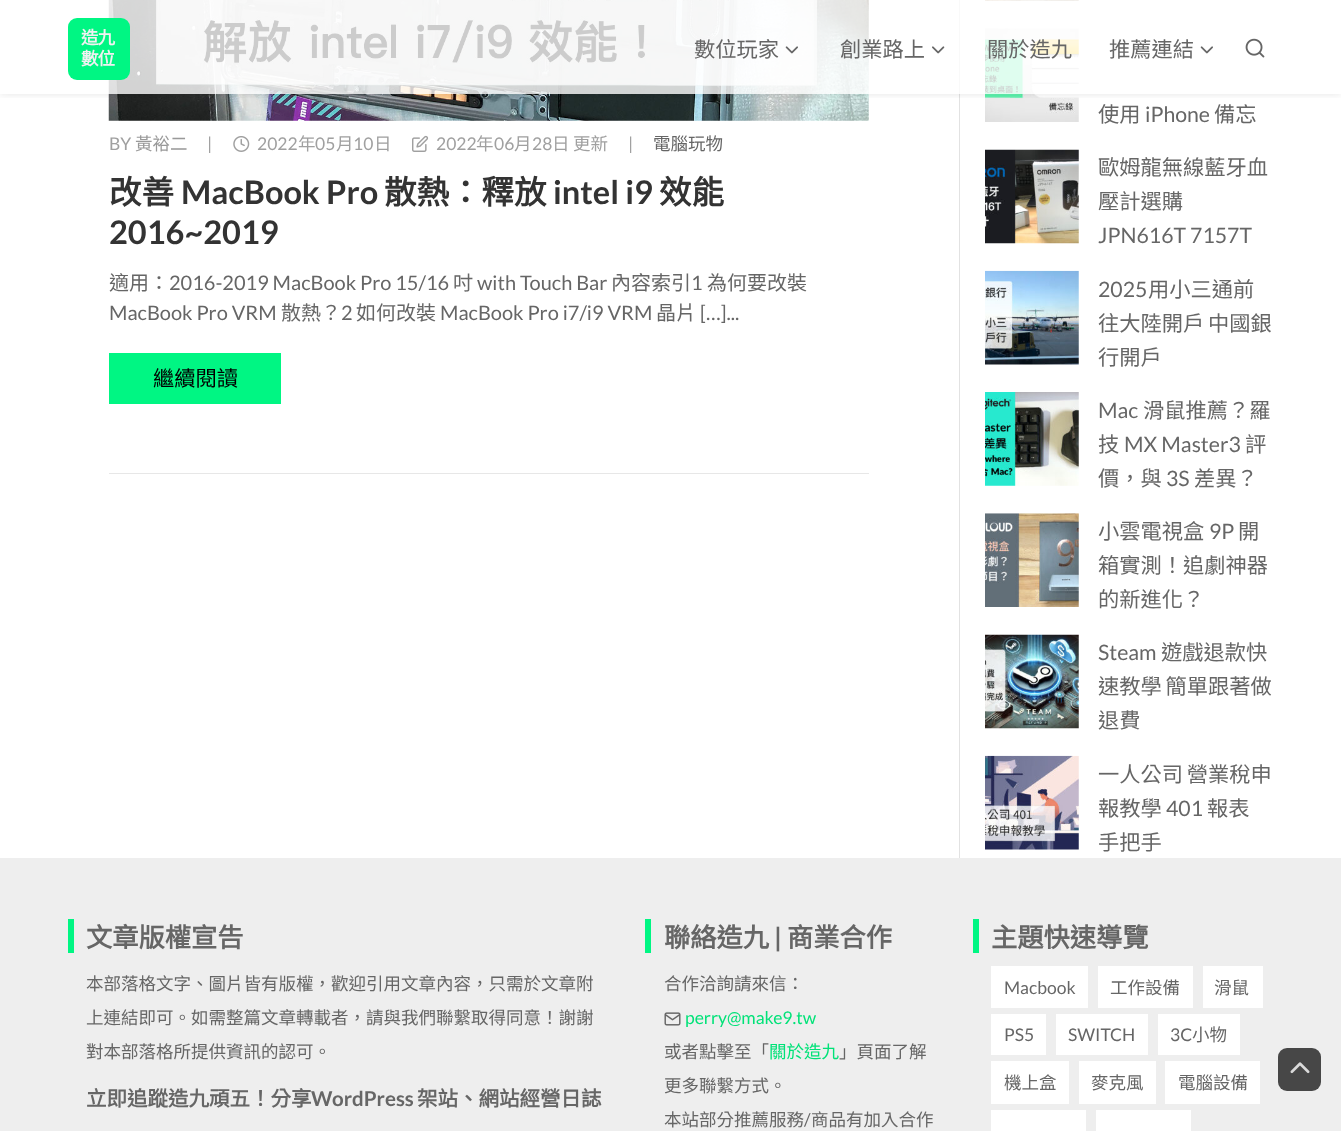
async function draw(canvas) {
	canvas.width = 1341;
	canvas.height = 1131;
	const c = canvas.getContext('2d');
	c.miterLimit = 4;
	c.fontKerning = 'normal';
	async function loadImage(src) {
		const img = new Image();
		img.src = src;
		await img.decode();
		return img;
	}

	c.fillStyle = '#fff';
	c.fillRect(0, 0, 1341, 1131);
	c.fillStyle = '#e2e2e2';
	c.fillRect(959, 0, 1, 858);
	c.drawImage(await loadImage('img5.png'), 108, 0, 761, 121);
	c.drawImage(await loadImage('img8.png'), 985, 0, 94, 1);
	c.drawImage(await loadImage('img9.png'), 985, 28, 94, 94);
	c.save();
	c.beginPath();
	c.rect(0, 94, 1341, 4);
	c.clip();
	c.fillStyle = '#0000001a';
	c.filter = 'blur(4.5px)';
	c.beginPath();
	c.rect(0, 0, 1341, 94);
	c.fill();
	c.filter = 'none';
	c.restore();
	c.fillStyle = '#ffffffcc';
	c.fillRect(6, 0, 1329, 94);
	c.fillStyle = '#00f683';
	c.beginPath();
	c.roundRect(68, 18, 62, 62, 9);
	c.fill();
	c.letterSpacing = '-1px';
	c.font = 'bold 17.5px Noto Sans TC';
	c.fillStyle = '#f1f1f1';
	c.fillText('造九', 81, 44);
	c.fillText('數位', 81, 65);
	c.letterSpacing = '0px';
	c.font = '100 21.25px Noto Sans TC';
	c.fillStyle = '#666';
	c.fillText('數位玩家', 694, 57);
	c.drawImage(await loadImage('img1.png'), 785, 46, 13, 8);
	c.fillText('創業路上', 840, 57);
	c.drawImage(await loadImage('img2.png'), 932, 46, 13, 8);
	c.fillText('關於造九', 987, 57);
	c.fillText('推薦連結', 1109, 57);
	c.drawImage(await loadImage('img3.png'), 1200, 46, 13, 8);
	c.drawImage(await loadImage('img4.png'), 1245, 38, 20, 20);
	c.fillStyle = '#e7e7e7';
	c.fillRect(109, 473, 760, 1);
	c.font = '17.5px Lato';
	c.fillStyle = '#a0a0a0';
	c.fillText('BY', 109, 150);
	c.font = '100 17.5px Noto Sans TC';
	c.fillStyle = '#999';
	c.fillText('黃裕二', 135, 150);
	c.font = '17.5px Lato';
	c.fillStyle = '#a0a0a0';
	c.fillText('|', 207, 150);
	c.drawImage(await loadImage('img6.png'), 233, 136, 17, 16);
	c.fillText('2022', 257, 150);
	c.font = '100 17.5px Noto Sans TC';
	c.fillText('年', 298, 150);
	c.font = '17.5px Lato';
	c.fillText('05', 315, 150);
	c.font = '100 17.5px Noto Sans TC';
	c.fillText('月', 336, 150);
	c.font = '17.5px Lato';
	c.fillText('10', 353, 150);
	c.font = '100 17.5px Noto Sans TC';
	c.fillText('日', 374, 150);
	c.drawImage(await loadImage('img7.png'), 412, 135, 17, 17);
	c.font = '17.5px Lato';
	c.fillText('2022', 436, 150);
	c.font = '100 17.5px Noto Sans TC';
	c.fillText('年', 476, 150);
	c.font = '17.5px Lato';
	c.fillText('06', 494, 150);
	c.font = '100 17.5px Noto Sans TC';
	c.fillText('月', 514, 150);
	c.font = '17.5px Lato';
	c.fillText('28', 532, 150);
	c.font = '100 17.5px Noto Sans TC';
	c.fillText('日', 552, 150);
	c.fillText('更新', 573, 150);
	c.font = '17.5px Lato';
	c.fillText('|', 628, 150);
	c.font = '100 17.5px Noto Sans TC';
	c.fillStyle = '#666';
	c.fillText('電腦玩物', 653, 150);
	c.font = 'bold 32.5px Noto Sans TC';
	c.fillStyle = '#333';
	c.fillText('改善', 109, 204);
	c.font = 'bold 32.5px Lato';
	c.fillText('MacBook Pro', 181, 204);
	c.font = 'bold 32.5px Noto Sans TC';
	c.fillText('散熱：釋放', 384, 204);
	c.font = 'bold 32.5px Lato';
	c.fillText('intel i9', 553, 204);
	c.font = 'bold 32.5px Noto Sans TC';
	c.fillText('效能', 659, 204);
	c.font = 'bold 32.5px Lato';
	c.fillText('2016~2019', 109, 244);
	c.font = '100 20px Noto Sans TC';
	c.fillStyle = '#666';
	c.fillText('適用：', 109, 290);
	c.font = '20px Lato';
	c.fillText('2016-2019 MacBook Pro 15/16', 169, 290);
	c.font = '100 20px Noto Sans TC';
	c.fillText('吋', 453, 290);
	c.font = '20px Lato';
	c.fillText('with Touch Bar', 477, 290);
	c.font = '100 20px Noto Sans TC';
	c.fillText('內容索引', 611, 290);
	c.font = '20px Lato';
	c.fillText('1', 691, 290);
	c.font = '100 20px Noto Sans TC';
	c.fillText('為何要改裝', 707, 290);
	c.font = '20px Lato';
	c.fillText('MacBook Pro VRM', 109, 320);
	c.font = '100 20px Noto Sans TC';
	c.fillText('散熱？', 281, 320);
	c.font = '20px Lato';
	c.fillText('2', 341, 320);
	c.font = '100 20px Noto Sans TC';
	c.fillText('如何改裝', 356, 320);
	c.font = '20px Lato';
	c.fillText('MacBook Pro i7/i9 VRM', 440, 320);
	c.font = '100 20px Noto Sans TC';
	c.fillText('晶片', 656, 320);
	c.font = '20px Lato';
	c.fillText('[…]...', 700, 320);
	c.fillStyle = '#00f683';
	c.fillRect(109, 353, 172, 51);
	c.font = '100 21.25px Noto Sans TC';
	c.fillStyle = '#000';
	c.fillText('繼續閱讀', 153, 386);
	c.fillStyle = '#666';
	c.fillText('使用', 1098, 122);
	c.font = '21.25px Lato';
	c.fillText('iPhone', 1145, 122);
	c.font = '100 21.25px Noto Sans TC';
	c.fillText('備忘', 1214, 122);
	c.drawImage(await loadImage('img10.png'), 985, 149, 94, 95);
	c.fillText('歐姆龍無線藍牙血', 1098, 175);
	c.fillText('壓計選購', 1098, 209);
	c.font = '21.25px Lato';
	c.fillText('JPN616T 7157T', 1098, 243);
	c.drawImage(await loadImage('img11.png'), 985, 270, 94, 95);
	c.fillText('2025', 1098, 297);
	c.font = '100 21.25px Noto Sans TC';
	c.fillText('用小三通前', 1148, 297);
	c.wordSpacing = '-1px';
	c.fillText('往大陸開戶 中國銀', 1098, 331);
	c.wordSpacing = '0px';
	c.fillText('行開戶', 1098, 365);
	c.drawImage(await loadImage('img12.png'), 985, 392, 94, 94);
	c.font = '21.25px Lato';
	c.fillText('Mac', 1098, 418);
	c.font = '100 21.25px Noto Sans TC';
	c.fillText('滑鼠推薦？羅', 1143, 418);
	c.fillText('技', 1098, 452);
	c.font = '21.25px Lato';
	c.fillText('MX Master3', 1124, 452);
	c.font = '100 21.25px Noto Sans TC';
	c.fillText('評', 1245, 452);
	c.fillText('價，與', 1098, 486);
	c.font = '21.25px Lato';
	c.fillText('3S', 1166, 486);
	c.font = '100 21.25px Noto Sans TC';
	c.fillText('差異？', 1194, 486);
	c.drawImage(await loadImage('img13.png'), 985, 513, 94, 94);
	c.fillText('小雲電視盒', 1098, 539);
	c.font = '21.25px Lato';
	c.fillText('9P', 1209, 539);
	c.font = '100 21.25px Noto Sans TC';
	for (const [text, x, y] of [
		['開', 1238, 539],
		['箱實測！追劇神器', 1098, 573],
		['的新進化？', 1098, 607],
	]) {
		c.fillText(text, x, y);
	}
	c.drawImage(await loadImage('img14.png'), 985, 634, 94, 95);
	c.font = '21.25px Lato';
	c.fillText('Steam', 1098, 660);
	c.font = '100 21.25px Noto Sans TC';
	c.fillText('遊戲退款快', 1161, 660);
	c.wordSpacing = '-1px';
	c.fillText('速教學 簡單跟著做', 1098, 694);
	c.wordSpacing = '0px';
	c.fillText('退費', 1098, 728);
	c.drawImage(await loadImage('img15.png'), 985, 755, 94, 95);
	c.wordSpacing = '-1px';
	c.fillText('一人公司 營業稅申', 1098, 782);
	c.wordSpacing = '0px';
	c.fillText('報教學', 1098, 816);
	c.font = '21.25px Lato';
	c.fillText('401', 1166, 816);
	c.font = '100 21.25px Noto Sans TC';
	c.fillText('報表', 1207, 816);
	c.fillText('手把手', 1098, 850);
	c.fillStyle = '#eee';
	c.fillRect(0, 858, 1341, 273);
	c.fillStyle = '#00f683';
	c.fillRect(68, 919, 6, 34);
	c.font = 'bold 26.25px Noto Sans TC';
	c.fillStyle = '#666';
	c.fillText('文章版權宣告', 86, 947);
	c.font = '100 17.5px Noto Sans TC';
	for (const [text, x, y] of [
		['本部落格文字、圖片皆有版權，歡迎引用文章內容，只需於文章附', 86, 990],
		['上連結即可。如需整篇文章轉載者，請與我們聯繫取得同意！謝謝', 86, 1024],
		['對本部落格所提供資訊的認可。', 86, 1058],
	]) {
		c.fillText(text, x, y);
	}
	c.font = 'bold 20.5px Noto Sans TC';
	c.fillText('立即追蹤造九頑五！分享', 86, 1106);
	c.font = 'bold 20.5px Lato';
	c.fillText('WordPress', 311, 1106);
	c.font = 'bold 20.5px Noto Sans TC';
	c.fillText('架站、網站經營日誌', 417, 1106);
	c.fillStyle = '#00f683';
	c.fillRect(645, 919, 6, 34);
	c.font = 'bold 26.25px Noto Sans TC';
	c.fillStyle = '#666';
	c.fillText('聯絡造九', 664, 947);
	c.font = 'bold 26.25px Lato';
	c.fillText('|', 774, 947);
	c.font = 'bold 26.25px Noto Sans TC';
	c.fillText('商業合作', 787, 947);
	c.font = '100 17.5px Noto Sans TC';
	c.fillText('合作洽詢請來信：', 664, 990);
	c.drawImage(await loadImage('img16.png'), 664, 1012, 17, 14);
	c.font = '17.5px Lato';
	c.fillStyle = '#00e278';
	c.fillText('perry@make9.tw', 685, 1024);
	c.font = '100 17.5px Noto Sans TC';
	c.fillStyle = '#666';
	c.fillText('或者點擊至「', 664, 1058);
	c.fillStyle = '#00e278';
	c.fillText('關於造九', 769, 1058);
	c.fillStyle = '#666';
	for (const [text, x, y] of [
		['」頁面了解', 839, 1058],
		['更多聯繫方式。', 664, 1092],
		['本站部分推薦服務', 664, 1126],
	]) {
		c.fillText(text, x, y);
	}
	c.font = '17.5px Lato';
	c.fillText('/', 804, 1126);
	c.font = '100 17.5px Noto Sans TC';
	c.fillText('商品有加入合作', 811, 1126);
	c.fillStyle = '#00f683';
	c.fillRect(973, 919, 6, 34);
	c.font = 'bold 26.25px Noto Sans TC';
	c.fillStyle = '#666';
	c.fillText('主題快速導覽', 991, 947);
	c.fillStyle = '#fff';
	c.fillRect(991, 966, 97, 42);
	c.font = '17.5px Lato';
	c.fillStyle = '#666';
	c.fillText('Macbook', 1004, 994);
	c.fillStyle = '#fff';
	c.fillRect(1098, 966, 95, 42);
	c.font = '100 17.5px Noto Sans TC';
	c.fillStyle = '#666';
	c.fillText('工作設備', 1110, 994);
	c.fillStyle = '#fff';
	c.fillRect(1203, 966, 60, 42);
	c.fillStyle = '#666';
	c.fillText('滑鼠', 1214, 994);
	c.fillStyle = '#fff';
	c.fillRect(991, 1014, 55, 41);
	c.font = '17.5px Lato';
	c.fillStyle = '#666';
	c.fillText('PS5', 1004, 1041);
	c.fillStyle = '#fff';
	c.fillRect(1056, 1014, 92, 41);
	c.fillStyle = '#666';
	c.fillText('SWITCH', 1068, 1041);
	c.fillStyle = '#fff';
	c.fillRect(1158, 1014, 82, 41);
	c.fillStyle = '#666';
	c.fillText('3C', 1170, 1041);
	c.font = '100 17.5px Noto Sans TC';
	c.fillText('小物', 1192, 1041);
	c.fillStyle = '#fff';
	c.fillRect(991, 1061, 78, 43);
	c.fillStyle = '#666';
	c.fillText('機上盒', 1004, 1089);
	c.fillStyle = '#fff';
	c.fillRect(1079, 1061, 77, 43);
	c.fillStyle = '#666';
	c.fillText('麥克風', 1091, 1089);
	c.fillStyle = '#fff';
	c.fillRect(1165, 1061, 95, 43);
	c.fillStyle = '#666';
	c.fillText('電腦設備', 1178, 1089);
	c.fillStyle = '#fff';
	c.fillRect(991, 1110, 95, 21);
	c.fillRect(1096, 1110, 95, 21);
	c.fillStyle = '#474747';
	c.beginPath();
	c.roundRect(1278, 1048, 43, 43, 9);
	c.fill();
	c.drawImage(await loadImage('img17.png'), 1290, 1062, 20, 12);
}

draw(document.querySelector('canvas'));
